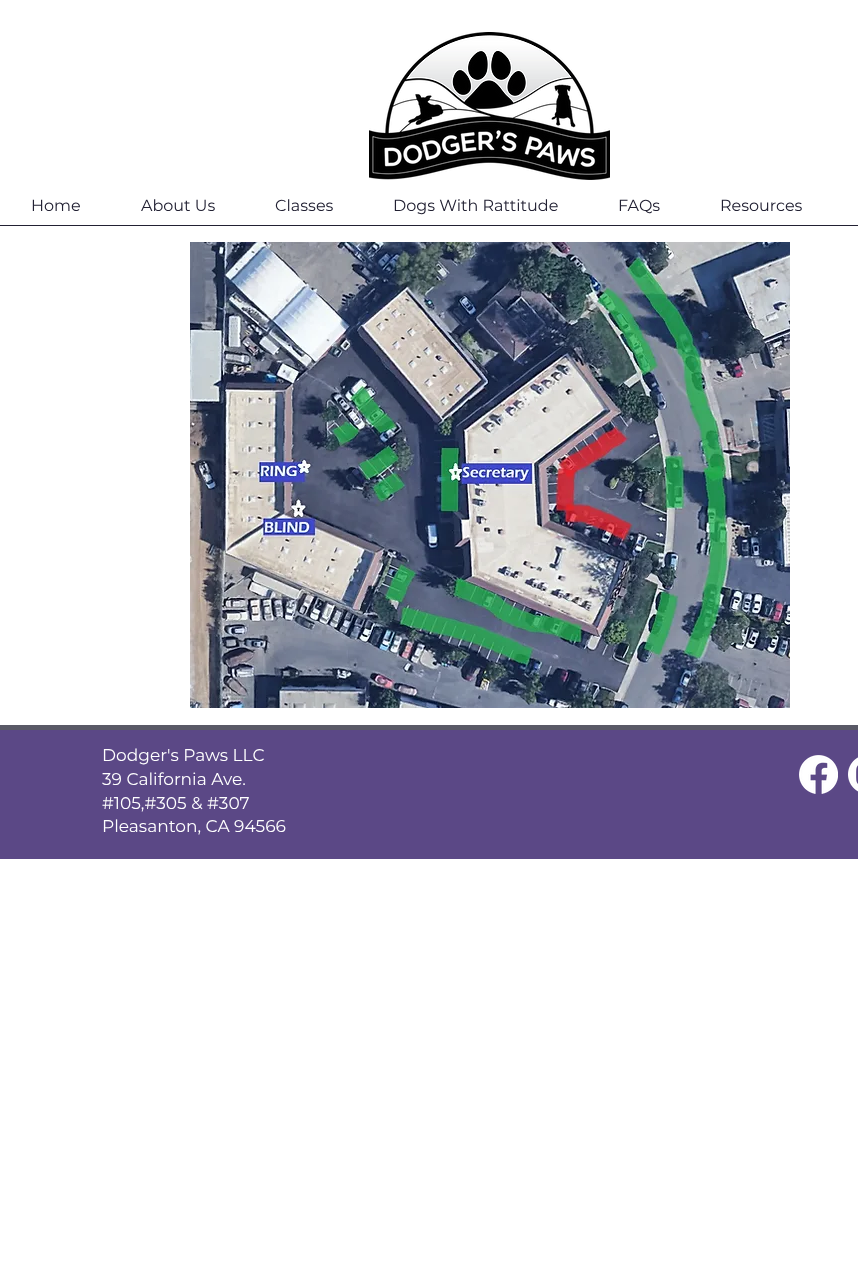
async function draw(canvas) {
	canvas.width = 858;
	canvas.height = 1284;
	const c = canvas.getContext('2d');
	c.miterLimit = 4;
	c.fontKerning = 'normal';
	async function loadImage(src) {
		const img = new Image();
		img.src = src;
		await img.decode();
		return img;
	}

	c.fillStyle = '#fff';
	c.fillRect(0, 0, 858, 1284);
	c.drawImage(await loadImage('img1.png'), 369, 32, 241, 148);
	c.font = '16px Montserrat';
	c.fillStyle = '#222133';
	for (const [text, x, y] of [
		['Home', 31, 211],
		['About Us', 141, 211],
		['Classes', 275, 211],
		['Dogs With Rattitude', 393, 211],
		['FAQs', 618, 211],
		['Resources', 720, 211],
	]) {
		c.fillText(text, x, y);
	}
	c.fillRect(0, 225, 858, 1);
	c.drawImage(await loadImage('img2.png'), 190, 242, 600, 466);
	c.fillStyle = '#595966';
	c.fillRect(0, 725, 858, 5);
	c.fillStyle = '#5b4886';
	c.fillRect(0, 730, 858, 129);
	c.font = '17px Montserrat';
	c.fillStyle = '#fff';
	for (const [text, x, y] of [
		['Dodger\'s Paws LLC', 102, 761],
		['39 California Ave.', 102, 785],
		['#105,#305 & #307', 102, 809],
		['Pleasanton, CA 94566', 102, 832],
	]) {
		c.fillText(text, x, y);
	}
	c.drawImage(await loadImage('img3.png'), 799, 755, 39, 39);
	c.drawImage(await loadImage('img4.png'), 848, 757, 10, 35);
}

draw(document.querySelector('canvas'));
